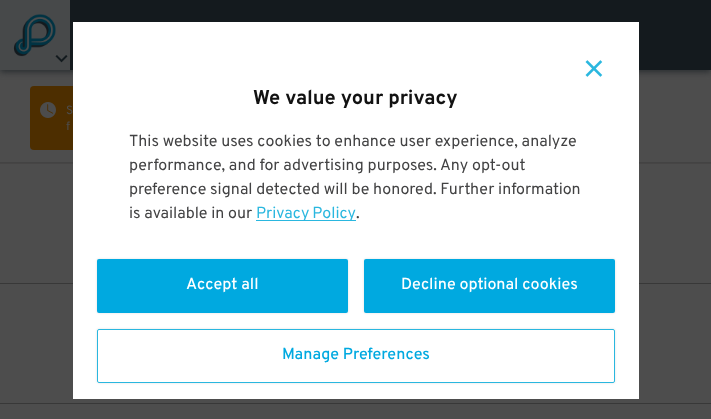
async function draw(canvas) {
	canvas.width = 711;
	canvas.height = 419;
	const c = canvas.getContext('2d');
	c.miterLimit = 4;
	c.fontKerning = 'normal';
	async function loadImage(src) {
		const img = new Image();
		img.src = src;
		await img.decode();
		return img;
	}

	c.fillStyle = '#4d4d4d';
	c.fillRect(0, 0, 711, 419);
	c.fillStyle = '#282c2f';
	c.filter = 'blur(3px)';
	c.beginPath();
	c.rect(0, 2, 711, 70);
	c.fill();
	c.filter = 'none';
	c.fillStyle = '#141a1e';
	c.fillRect(70, 0, 641, 70);
	c.fillStyle = '#47494a';
	c.fillRect(0, 0, 70, 70);
	c.drawImage(await loadImage('img1.png'), 13, 14, 43, 43);
	c.drawImage(await loadImage('img2.png'), 55, 55, 13, 8);
	c.fillStyle = '#4d2e00';
	c.beginPath();
	c.roundRect(30, 86, 253, 64, 4);
	c.fill();
	c.drawImage(await loadImage('img3.png'), 40, 102, 16, 16);
	c.font = '12px Overpass';
	c.fillStyle = '#4d4d4d';
	c.fillText('S', 66, 114);
	c.fillText('f', 66, 130);
	for (const [x, y, w, h, color] of [
		[0, 163, 711, 1, '#464545'],
		[0, 162, 711, 1, '#434343'],
		[0, 283, 711, 1, '#383838'],
		[0, 403, 711, 1, '#383838'],
		[73, 22, 566, 377, '#fff'],
	]) {
		c.fillStyle = color;
		c.fillRect(x, y, w, h);
	}
	c.drawImage(await loadImage('img4.png'), 585, 60, 18, 17);
	c.font = 'bold 20px Overpass';
	c.fillStyle = '#121212';
	c.fillText('We value your privacy', 253, 104);
	c.font = '16px Overpass';
	c.fillStyle = '#424243';
	for (const [text, x, y] of [
		['This website uses cookies to enhance user experience, analyze', 129, 146],
		['performance, and for advertising purposes. Any opt-out', 129, 170],
		['preference signal detected will be honored. Further information', 129, 194],
		['is available in our', 129, 218],
	]) {
		c.fillText(text, x, y);
	}
	c.fillStyle = '#2ab7df';
	c.fillRect(256, 220, 100, 1);
	c.wordSpacing = '-1px';
	c.fillText('Privacy Policy', 256, 218);
	c.wordSpacing = '0px';
	c.fillStyle = '#424243';
	c.fillText('.', 356, 218);
	c.fillStyle = '#0000001f';
	c.filter = 'blur(1px)';
	c.beginPath();
	c.roundRect(97, 259, 251, 54, 2);
	c.fill();
	c.filter = 'none';
	c.fillStyle = '#00a9e0';
	c.beginPath();
	c.roundRect(97, 259, 251, 54, 2);
	c.fill();
	c.font = '500 16px Overpass';
	c.fillStyle = '#fff';
	c.fillText('Accept all', 186, 289);
	c.fillStyle = '#0000001f';
	c.filter = 'blur(1px)';
	c.beginPath();
	c.roundRect(364, 259, 251, 54, 2);
	c.fill();
	c.filter = 'none';
	c.fillStyle = '#00a9e0';
	c.beginPath();
	c.roundRect(364, 259, 251, 54, 2);
	c.fill();
	c.fillStyle = '#fff';
	c.fillText('Decline optional cookies', 401, 289);
	c.save();
	c.beginPath();
	c.moveTo(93, 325);
	c.lineTo(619, 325);
	c.lineTo(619, 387);
	c.lineTo(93, 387);
	c.closePath();
	c.moveTo(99, 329);
	c.lineTo(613, 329);
	c.bezierCurveTo(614, 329, 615, 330, 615, 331);
	c.lineTo(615, 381);
	c.bezierCurveTo(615, 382, 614, 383, 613, 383);
	c.lineTo(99, 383);
	c.bezierCurveTo(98, 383, 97, 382, 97, 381);
	c.lineTo(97, 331);
	c.bezierCurveTo(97, 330, 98, 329, 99, 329);
	c.closePath();
	c.clip('evenodd');
	c.fillStyle = '#0000001f';
	c.filter = 'blur(1px)';
	c.beginPath();
	c.roundRect(97, 329, 518, 54, 2);
	c.fill();
	c.filter = 'none';
	c.restore();
	c.beginPath();
	c.roundRect(97.5, 329.5, 517, 53, 1.5);
	c.strokeStyle = '#2ab7df';
	c.stroke();
	c.fillStyle = '#00a9e0';
	c.fillText('Manage Preferences', 282, 359);
}

draw(document.querySelector('canvas'));
